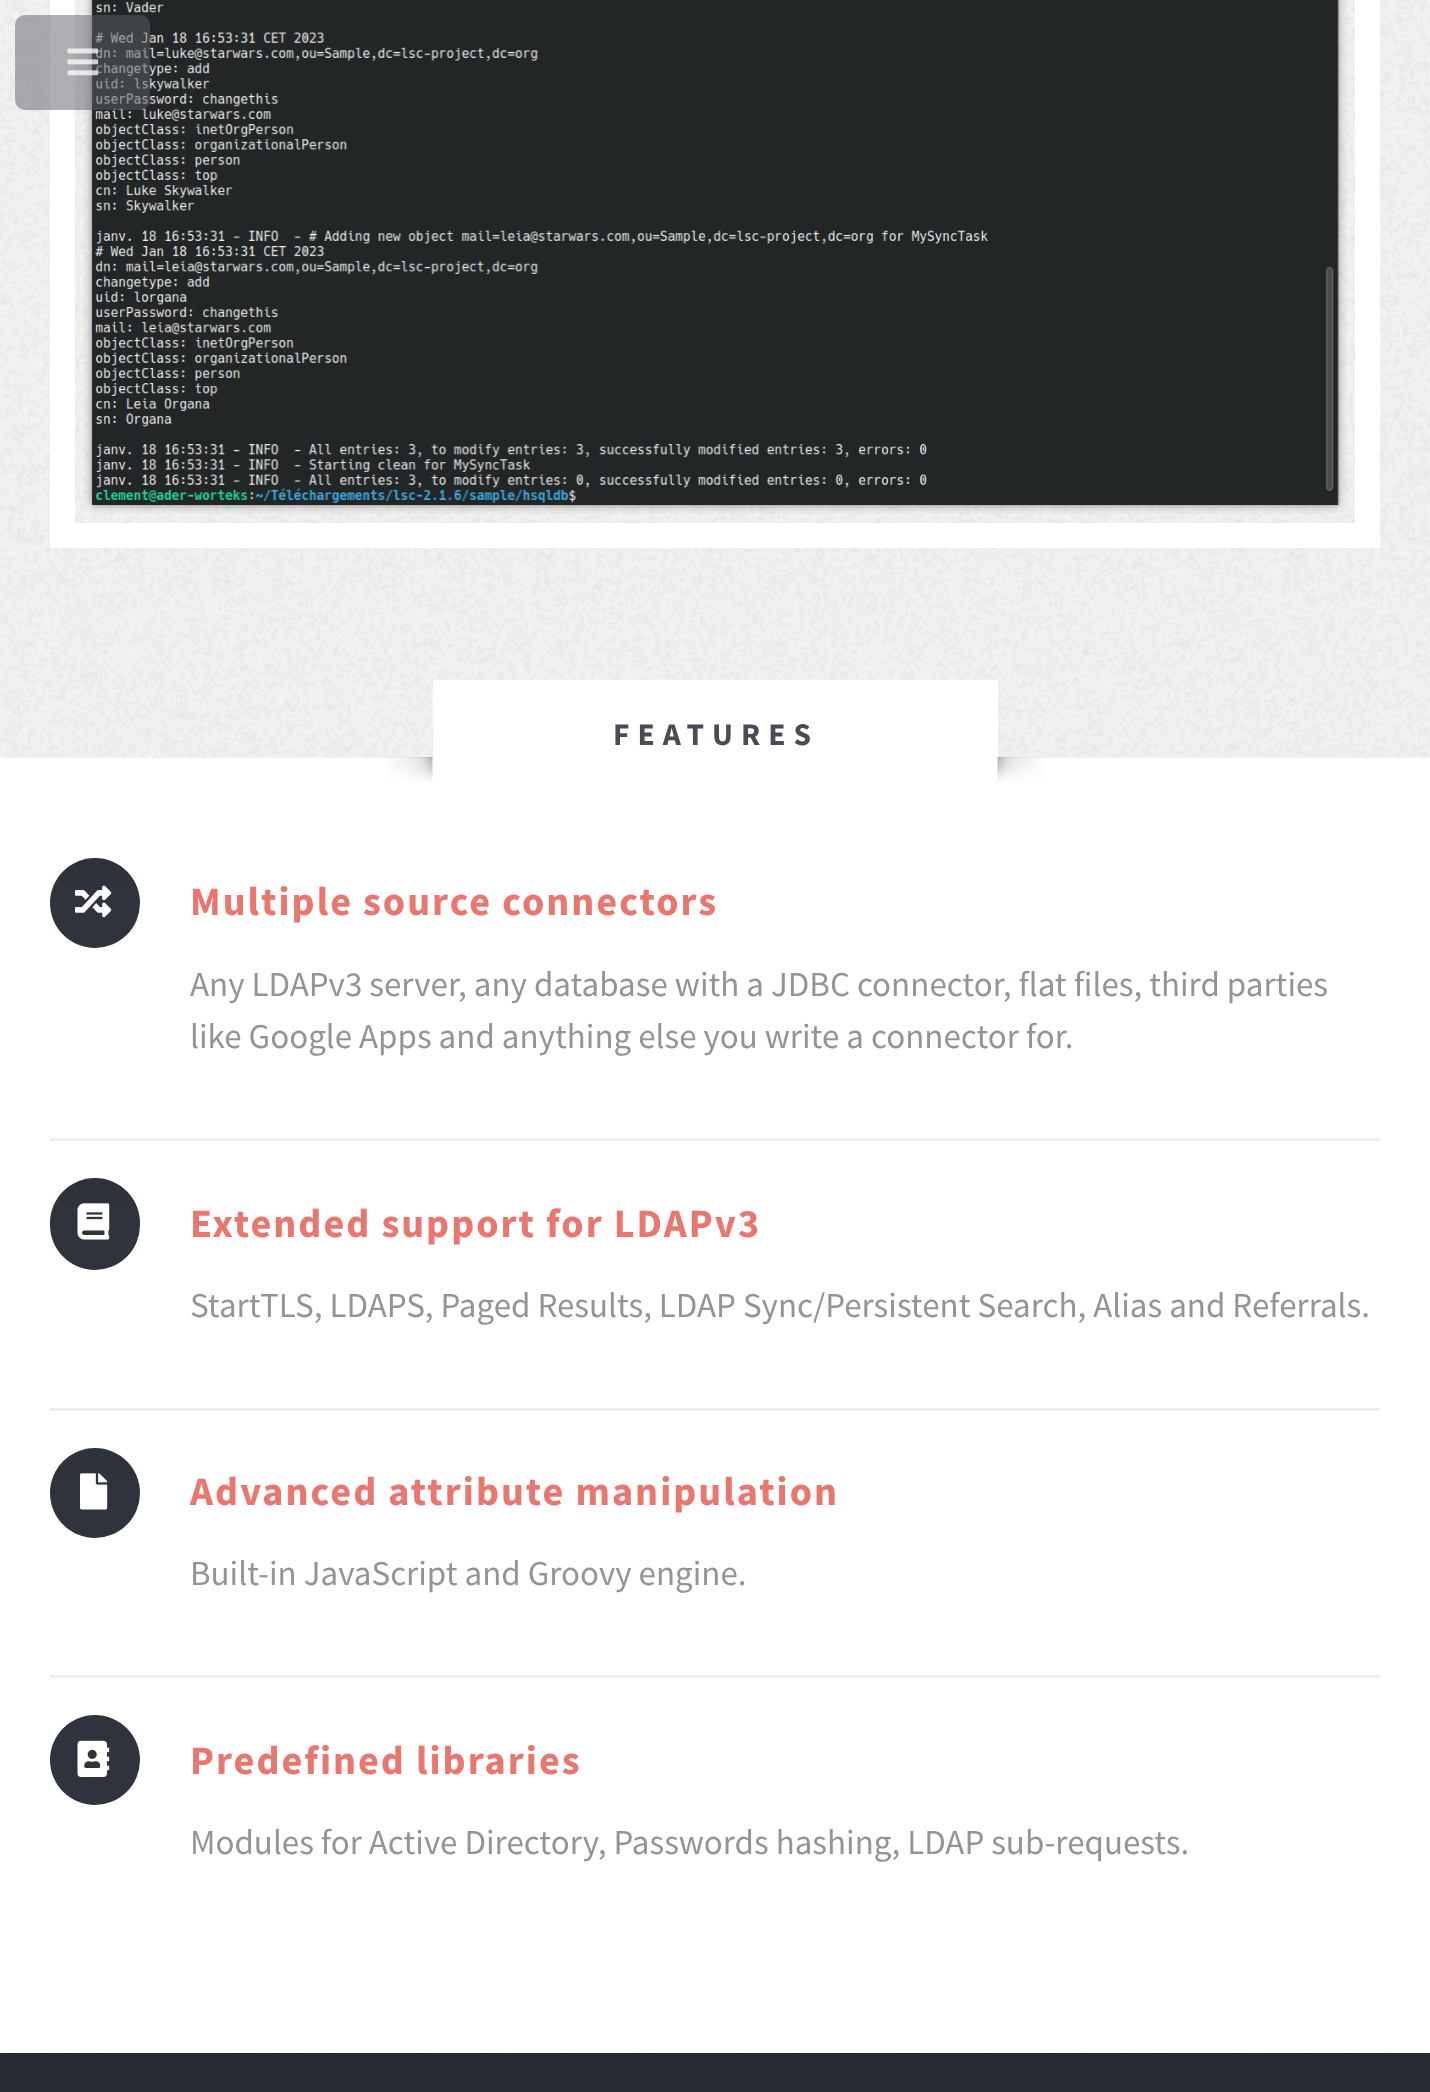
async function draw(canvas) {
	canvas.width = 1430;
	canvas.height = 2092;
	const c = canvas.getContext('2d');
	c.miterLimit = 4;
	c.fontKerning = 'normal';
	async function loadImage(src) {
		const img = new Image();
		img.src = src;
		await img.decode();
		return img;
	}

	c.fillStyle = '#fff';
	c.fillRect(0, 0, 1430, 2092);
	c.fillStyle = '#f3f3f3';
	c.fillRect(0, 0, 1430, 758);
	c.drawImage(await loadImage('img2.png'), 0, 0, 1430, 757);
	c.strokeStyle = '#fff';
	c.lineWidth = 25;
	c.strokeRect(62.5, -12.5, 1305, 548);
	c.drawImage(await loadImage('img3.png'), 83, 0, 1264, 514);
	c.fillStyle = '#5c5f6780';
	c.beginPath();
	c.roundRect(15, 15, 135, 95, 10);
	c.fill();
	c.drawImage(await loadImage('img1.png'), 67, 48, 32, 28);
	c.fillStyle = '#fff';
	c.fillRect(433, 680, 565, 78);
	c.letterSpacing = '8px';
	c.font = 'bold 31.5px Source Sans Pro';
	c.fillStyle = '#484d55';
	c.fillText('FEATURES', 613, 745);
	c.drawImage(await loadImage('img4.png'), 387, 757, 46, 25);
	c.drawImage(await loadImage('img5.png'), 997, 757, 46, 25);
	c.fillStyle = '#2f333b';
	c.beginPath();
	c.arc(95, 903, 45, 0, 2 * Math.PI);
	c.fill();
	c.drawImage(await loadImage('img6.png'), 58, 857, 79, 29);
	c.drawImage(await loadImage('img7.png'), 75, 885, 37, 33);
	c.letterSpacing = '2px';
	c.font = 'bold 40.25px Source Sans Pro';
	c.fillStyle = '#e97770';
	c.fillText('Multiple source connectors', 190, 915);
	c.letterSpacing = '0px';
	c.font = '35px Source Sans Pro';
	c.fillStyle = '#919499';
	c.fillText('Any LDAPv3 server, any database with a JDBC connector, flat files, third parties', 190, 996);
	c.fillText('like Google Apps and anything else you write a connector for.', 190, 1048);
	c.fillStyle = '#eee';
	c.fillRect(50, 1138, 1330, 3);
	c.fillStyle = '#2f333b';
	c.beginPath();
	c.roundRect(50, 1178, 90, 92, 45);
	c.fill();
	c.drawImage(await loadImage('img6.png'), 58, 1177, 79, 29);
	c.drawImage(await loadImage('img8.png'), 77, 1203, 33, 37);
	c.letterSpacing = '2px';
	c.font = 'bold 40.25px Source Sans Pro';
	c.fillStyle = '#e97770';
	c.fillText('Extended support for LDAPv3', 190, 1237);
	c.letterSpacing = '0px';
	c.font = '35px Source Sans Pro';
	c.fillStyle = '#919499';
	c.fillText('StartTLS, LDAPS, Paged Results, LDAP Sync/Persistent Search, Alias and Referrals.', 190, 1317);
	c.fillStyle = '#eee';
	c.fillRect(50, 1408, 1330, 3);
	c.fillStyle = '#2f333b';
	c.beginPath();
	c.arc(95, 1493, 45, 0, 2 * Math.PI);
	c.fill();
	c.drawImage(await loadImage('img6.png'), 58, 1447, 79, 29);
	c.drawImage(await loadImage('img9.png'), 80, 1473, 28, 37);
	c.letterSpacing = '2px';
	c.font = 'bold 40.25px Source Sans Pro';
	c.fillStyle = '#e97770';
	c.fillText('Advanced attribute manipulation', 190, 1505);
	c.letterSpacing = '0px';
	c.font = '35px Source Sans Pro';
	c.fillStyle = '#919499';
	c.fillText('Built-in JavaScript and Groovy engine.', 190, 1585);
	c.fillStyle = '#eee';
	c.fillRect(50, 1675, 1330, 3);
	c.fillStyle = '#2f333b';
	c.beginPath();
	c.arc(95, 1760, 45, 0, 2 * Math.PI);
	c.fill();
	c.drawImage(await loadImage('img10.png'), 68, 1723, 54, 1);
	c.drawImage(await loadImage('img11.png'), 77, 1740, 33, 37);
	c.letterSpacing = '2px';
	c.font = 'bold 40.25px Source Sans Pro';
	c.fillStyle = '#e97770';
	c.fillText('Predefined libraries', 190, 1774);
	c.letterSpacing = '0px';
	c.font = '35px Source Sans Pro';
	c.fillStyle = '#919499';
	c.fillText('Modules for Active Directory, Passwords hashing, LDAP sub-requests.', 190, 1854);
	c.fillStyle = '#282b34';
	c.fillRect(0, 2053, 1430, 39);
	c.drawImage(await loadImage('img12.png'), 10, 2052, 1415, 1);
}

draw(document.querySelector('canvas'));
